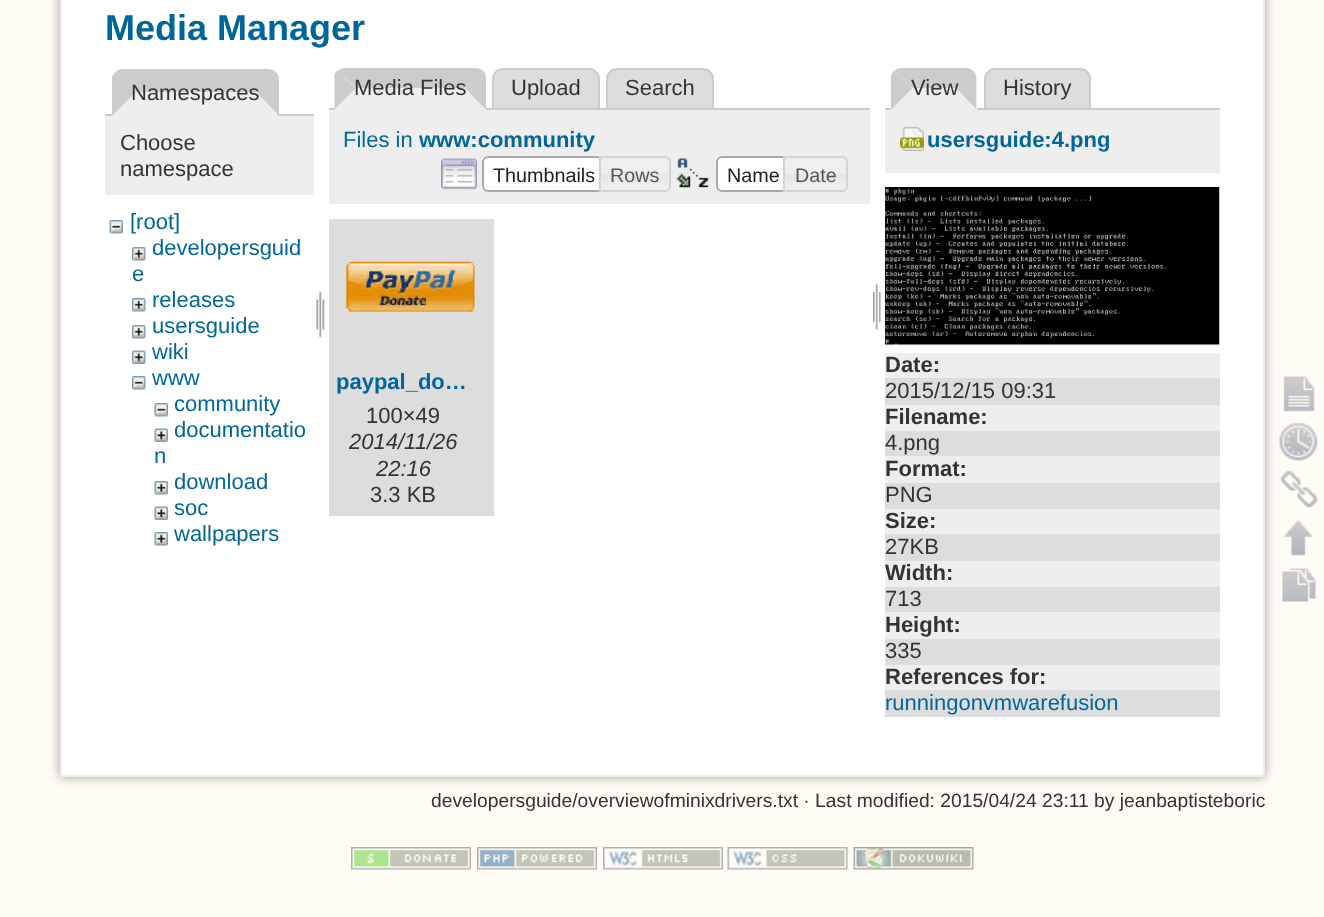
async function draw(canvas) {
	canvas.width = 1324;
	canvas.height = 917;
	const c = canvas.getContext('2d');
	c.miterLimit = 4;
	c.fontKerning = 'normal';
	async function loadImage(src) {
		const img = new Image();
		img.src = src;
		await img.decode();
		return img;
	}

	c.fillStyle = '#fefcf4';
	c.fillRect(0, 0, 1324, 917);
	c.fillStyle = '#999';
	c.filter = 'blur(5.5px)';
	c.beginPath();
	c.roundRect(60, -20, 1205, 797, 3);
	c.fill();
	c.filter = 'none';
	c.fillStyle = '#fff';
	c.beginPath();
	c.roundRect(61, -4, 1203, 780, 2);
	c.fill();
	c.strokeStyle = '#eee';
	c.lineWidth = 2;
	c.stroke();
	c.font = 'bold 36px Liberation Sans';
	c.fillStyle = '#069';
	c.fillText('Media Manager', 105, 40);
	c.fillStyle = '#ccc';
	c.beginPath();
	c.moveTo(123, 69);
	c.lineTo(268, 69);
	c.bezierCurveTo(271, 69, 274, 70, 276, 72);
	c.lineTo(256, 92);
	c.lineTo(136, 92);
	c.lineTo(116, 72);
	c.bezierCurveTo(117, 70, 120, 69, 123, 69);
	c.closePath();
	c.fill();
	c.fillRect(105, 114, 209, 2);
	c.beginPath();
	c.moveTo(276, 72);
	c.lineTo(256, 92);
	c.lineTo(279, 116);
	c.lineTo(279, 80);
	c.bezierCurveTo(279, 77, 278, 74, 276, 72);
	c.closePath();
	c.fill();
	c.fillStyle = '#eee';
	c.beginPath();
	c.moveTo(279, 116);
	c.lineTo(256, 92);
	c.lineTo(136, 92);
	c.lineTo(112, 116);
	c.closePath();
	c.fill();
	c.fillStyle = '#ccc';
	c.beginPath();
	c.moveTo(112, 116);
	c.lineTo(136, 92);
	c.lineTo(116, 72);
	c.bezierCurveTo(114, 73, 113, 75, 112, 77);
	c.closePath();
	c.fill();
	c.font = '22px Liberation Sans';
	c.fillStyle = '#333';
	c.fillText('Namespaces', 131, 100);
	c.fillStyle = '#eee';
	c.fillRect(105, 116, 209, 79);
	c.fillStyle = '#333';
	c.fillText('Choose', 120, 150);
	c.fillText('namespace', 120, 176);
	c.drawImage(await loadImage('img1.png'), 109, 220, 14, 14);
	c.fillStyle = '#069';
	c.fillText('[root]', 130, 229);
	c.drawImage(await loadImage('img2.png'), 132, 247, 14, 14);
	c.fillText('developersguid', 152, 255);
	c.fillText('e', 132, 281);
	c.drawImage(await loadImage('img2.png'), 132, 298, 14, 14);
	c.fillText('releases', 152, 307);
	c.drawImage(await loadImage('img2.png'), 132, 325, 14, 14);
	c.fillText('usersguide', 152, 333);
	c.drawImage(await loadImage('img3.png'), 132, 350, 14, 14);
	c.fillText('wiki', 152, 359);
	c.drawImage(await loadImage('img4.png'), 132, 376, 14, 14);
	c.fillText('www', 152, 385);
	c.drawImage(await loadImage('img1.png'), 154, 403, 14, 14);
	c.fillText('community', 174, 411);
	c.drawImage(await loadImage('img5.png'), 154, 428, 14, 14);
	c.fillText('documentatio', 174, 437);
	c.fillText('n', 154, 463);
	c.drawImage(await loadImage('img6.png'), 154, 481, 14, 14);
	c.fillText('download', 174, 489);
	c.drawImage(await loadImage('img5.png'), 154, 506, 14, 14);
	c.fillText('soc', 174, 515);
	c.drawImage(await loadImage('img6.png'), 154, 532, 14, 14);
	c.fillText('wallpapers', 174, 541);
	c.drawImage(await loadImage('img7.png'), 316, 290, 9, 48);
	c.fillStyle = '#ddd';
	c.beginPath();
	c.roundRect(493, 69, 106, 40, [10, 10, 0, 0]);
	c.fill();
	c.strokeStyle = '#ccc';
	c.stroke();
	c.beginPath();
	c.roundRect(607, 69, 106, 40, [10, 10, 0, 0]);
	c.fill();
	c.stroke();
	c.fillStyle = '#ccc';
	c.fillRect(329, 108, 541, 2);
	c.fillStyle = '#eee';
	c.beginPath();
	c.roundRect(335, 68, 151, 42, [11, 11, 0, 0]);
	c.fill();
	c.fillStyle = '#ccc';
	c.beginPath();
	c.moveTo(345, 68);
	c.bezierCurveTo(342, 68, 339, 69, 338, 71);
	c.lineTo(356, 88);
	c.lineTo(465, 88);
	c.lineTo(483, 71);
	c.bezierCurveTo(481, 69, 478, 68, 475, 68);
	c.closePath();
	c.fill();
	c.beginPath();
	c.moveTo(486, 109.5);
	c.lineTo(486, 78);
	c.bezierCurveTo(486, 75, 485, 72.5, 483, 71);
	c.lineTo(465, 88.5);
	c.closePath();
	c.fill();
	c.fillStyle = '#eee';
	c.beginPath();
	c.moveTo(486, 110);
	c.lineTo(465, 88);
	c.lineTo(356, 88);
	c.lineTo(334, 110);
	c.closePath();
	c.fill();
	c.fillStyle = '#ccc';
	c.beginPath();
	c.moveTo(334.5, 109.5);
	c.lineTo(355.5, 88.5);
	c.lineTo(337.5, 70.5);
	c.bezierCurveTo(336, 71.5, 335, 73, 334.5, 75);
	c.closePath();
	c.fill();
	c.fillStyle = '#333';
	for (const [text, x, y] of [
		['Media Files', 354, 95],
		['Upload', 511, 95],
		['Search', 625, 95],
	]) {
		c.fillText(text, x, y);
	}
	c.fillStyle = '#eee';
	c.fillRect(329, 110, 541, 94);
	c.fillStyle = '#069';
	c.fillText('Files in', 343, 147);
	c.font = 'bold 22px Liberation Sans';
	c.fillText('www:community', 419, 147);
	c.drawImage(await loadImage('img8.png'), 441, 158, 36, 32);
	c.fillStyle = '#fff';
	c.beginPath();
	c.roundRect(482, 156, 124, 36, [6, 0, 0, 6]);
	c.fill();
	c.drawImage(await loadImage('img9.png'), 481, 155, 125, 34);
	c.beginPath();
	c.roundRect(483, 157, 122, 34, [5, 0, 0, 5]);
	c.strokeStyle = '#aaa';
	c.stroke();
	c.font = '19.75px Liberation Sans';
	c.fillStyle = '#212121';
	c.fillText('Thumbnails', 493, 182);
	c.drawImage(await loadImage('img10.png'), 598, 156, 72, 36);
	c.beginPath();
	c.roundRect(600, 157, 70, 34, [0, 5, 5, 0]);
	c.strokeStyle = '#d3d3d3';
	c.stroke();
	c.fillStyle = '#555';
	c.fillText('Rows', 610, 182);
	c.drawImage(await loadImage('img11.png'), 676, 158, 33, 30);
	c.fillStyle = '#fff';
	c.beginPath();
	c.roundRect(716, 156, 75, 36, [6, 0, 0, 6]);
	c.fill();
	c.drawImage(await loadImage('img12.png'), 715, 155, 75, 34);
	c.beginPath();
	c.roundRect(717, 157, 73, 34, [5, 0, 0, 5]);
	c.strokeStyle = '#aaa';
	c.stroke();
	c.fillStyle = '#212121';
	c.fillText('Name', 727, 182);
	c.drawImage(await loadImage('img13.png'), 785, 156, 62, 35);
	c.beginPath();
	c.roundRect(784, 157, 63, 34, [0, 5, 5, 0]);
	c.strokeStyle = '#d3d3d3';
	c.stroke();
	c.fillStyle = '#555';
	c.fillText('Date', 795, 182);
	c.drawImage(await loadImage('img14.png'), 873, 283, 8, 47);
	c.fillStyle = '#ddd';
	c.fillRect(329, 219, 165, 297);
	c.drawImage(await loadImage('img15.png'), 346, 261, 130, 51);
	c.font = 'bold 22px Liberation Sans';
	c.fillStyle = '#069';
	c.fillText('paypal_do…', 336, 389);
	c.font = '22px Liberation Sans';
	c.fillStyle = '#333';
	c.fillText('100×49', 366, 423);
	c.font = 'italic 22px Liberation Sans';
	c.fillText('2014/11/26', 349, 449);
	c.fillText('22:16', 376, 476);
	c.font = '22px Liberation Sans';
	c.fillText('3.3 KB', 370, 502);
	c.fillStyle = '#ddd';
	c.beginPath();
	c.roundRect(985, 69, 105, 40, [10, 10, 0, 0]);
	c.fill();
	c.strokeStyle = '#ccc';
	c.stroke();
	c.fillStyle = '#ccc';
	c.fillRect(885, 108, 335, 2);
	c.fillStyle = '#eee';
	c.beginPath();
	c.roundRect(891, 68, 86, 42, [11, 11, 0, 0]);
	c.fill();
	c.fillStyle = '#ccc';
	c.beginPath();
	c.moveTo(902, 68);
	c.bezierCurveTo(899, 68, 896, 69, 894, 71);
	c.lineTo(912, 88);
	c.lineTo(956, 88);
	c.lineTo(973, 71);
	c.bezierCurveTo(972, 69, 969, 68, 966, 68);
	c.closePath();
	c.fill();
	c.beginPath();
	c.moveTo(976, 109);
	c.lineTo(976, 78);
	c.bezierCurveTo(976, 75, 975, 72.5, 973, 71);
	c.lineTo(955.5, 88.5);
	c.closePath();
	c.fill();
	c.fillStyle = '#eee';
	c.beginPath();
	c.moveTo(976, 109);
	c.lineTo(956, 88);
	c.lineTo(912, 88);
	c.lineTo(891, 110);
	c.lineTo(976, 110);
	c.closePath();
	c.fill();
	c.fillStyle = '#ccc';
	c.beginPath();
	c.moveTo(891, 109.5);
	c.lineTo(912, 88.5);
	c.lineTo(894, 71);
	c.bezierCurveTo(892, 72.5, 891, 75, 891, 78);
	c.closePath();
	c.fill();
	c.fillStyle = '#333';
	c.fillText('View', 911, 95);
	c.fillText('History', 1003, 95);
	c.fillStyle = '#eee';
	c.fillRect(885, 110, 335, 63);
	c.drawImage(await loadImage('img16.png'), 900, 127, 24, 24);
	c.font = 'bold 22px Liberation Sans';
	c.fillStyle = '#069';
	c.fillText('usersguide:4.png', 927, 147);
	c.drawImage(await loadImage('img17.png'), 885, 187, 335, 158);
	c.fillStyle = '#eee';
	c.fillRect(885, 353, 335, 25);
	c.fillStyle = '#333';
	c.fillText('Date:', 885, 372);
	c.fillStyle = '#ddd';
	c.fillRect(885, 378, 335, 27);
	c.font = '22px Liberation Sans';
	c.fillStyle = '#333';
	c.fillText('2015/12/15 09:31', 885, 398);
	c.fillStyle = '#eee';
	c.fillRect(885, 405, 335, 26);
	c.font = 'bold 22px Liberation Sans';
	c.fillStyle = '#333';
	c.fillText('Filename:', 885, 424);
	c.fillStyle = '#ddd';
	c.fillRect(885, 431, 335, 25);
	c.font = '22px Liberation Sans';
	c.fillStyle = '#333';
	c.fillText('4.png', 885, 450);
	c.fillStyle = '#eee';
	c.fillRect(885, 456, 335, 27);
	c.font = 'bold 22px Liberation Sans';
	c.fillStyle = '#333';
	c.fillText('Format:', 885, 476);
	c.fillStyle = '#ddd';
	c.fillRect(885, 483, 335, 26);
	c.font = '22px Liberation Sans';
	c.fillStyle = '#333';
	c.fillText('PNG', 885, 502);
	c.fillStyle = '#eee';
	c.fillRect(885, 509, 335, 25);
	c.font = 'bold 22px Liberation Sans';
	c.fillStyle = '#333';
	c.fillText('Size:', 885, 528);
	c.fillStyle = '#ddd';
	c.fillRect(885, 534, 335, 27);
	c.font = '22px Liberation Sans';
	c.fillStyle = '#333';
	c.fillText('27KB', 885, 554);
	c.fillStyle = '#eee';
	c.fillRect(885, 561, 335, 26);
	c.font = 'bold 22px Liberation Sans';
	c.fillStyle = '#333';
	c.fillText('Width:', 885, 580);
	c.fillStyle = '#ddd';
	c.fillRect(885, 587, 335, 25);
	c.font = '22px Liberation Sans';
	c.fillStyle = '#333';
	c.fillText('713', 885, 606);
	c.fillStyle = '#eee';
	c.fillRect(885, 612, 335, 27);
	c.font = 'bold 22px Liberation Sans';
	c.fillStyle = '#333';
	c.fillText('Height:', 885, 632);
	c.fillStyle = '#ddd';
	c.fillRect(885, 639, 335, 26);
	c.font = '22px Liberation Sans';
	c.fillStyle = '#333';
	c.fillText('335', 885, 658);
	c.fillStyle = '#eee';
	c.fillRect(885, 665, 335, 25);
	c.font = 'bold 22px Liberation Sans';
	c.fillStyle = '#333';
	c.fillText('References for:', 885, 684);
	c.fillStyle = '#ddd';
	c.fillRect(885, 690, 335, 27);
	c.font = '22px Liberation Sans';
	c.fillStyle = '#069';
	c.fillText('runningonvmwarefusion', 885, 710);
	c.font = '19.25px Liberation Sans';
	c.fillStyle = '#333';
	c.fillText('developersguide/overviewofminixdrivers.txt · Last modified: 2015/04/24 23:11 by jeanbaptisteboric', 431, 807);
	c.drawImage(await loadImage('img18.png'), 1283, 376, 32, 36);
	c.drawImage(await loadImage('img19.png'), 1279, 422, 39, 39);
	c.drawImage(await loadImage('img20.png'), 1280, 470, 38, 38);
	c.drawImage(await loadImage('img21.png'), 1284, 520, 29, 36);
	c.drawImage(await loadImage('img22.png'), 1282, 568, 34, 34);
	c.drawImage(await loadImage('img23.png'), 351, 847, 120, 23);
	c.drawImage(await loadImage('img24.png'), 477, 847, 120, 23);
	c.drawImage(await loadImage('img25.png'), 603, 847, 120, 23);
	c.drawImage(await loadImage('img26.png'), 727, 847, 121, 23);
	c.drawImage(await loadImage('img27.png'), 853, 847, 121, 23);
}

draw(document.querySelector('canvas'));
